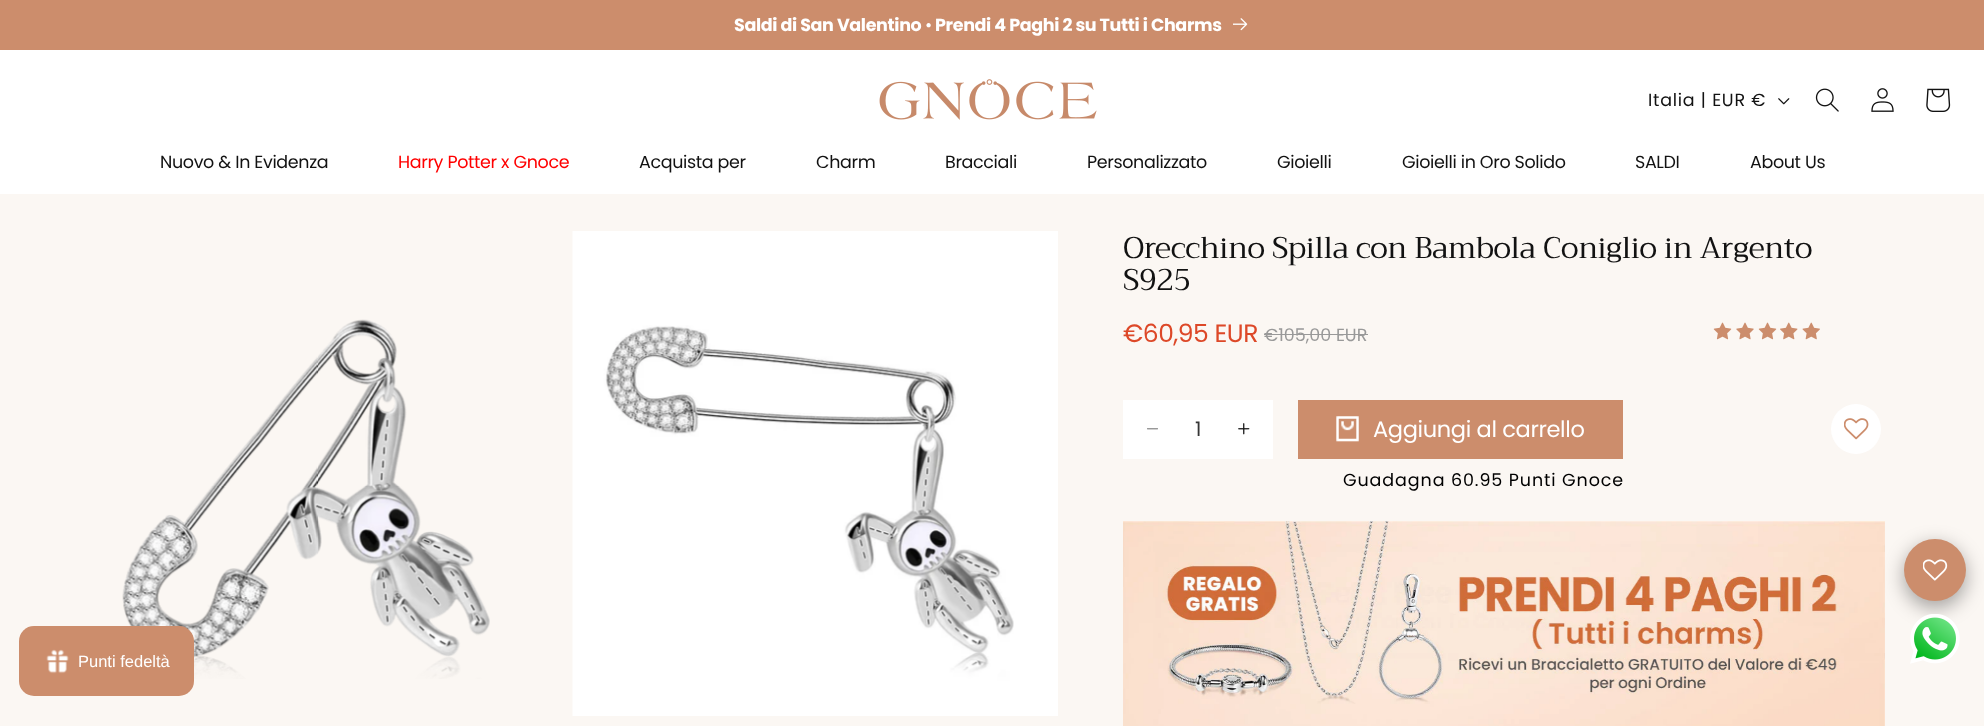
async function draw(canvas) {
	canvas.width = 1984;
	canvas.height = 726;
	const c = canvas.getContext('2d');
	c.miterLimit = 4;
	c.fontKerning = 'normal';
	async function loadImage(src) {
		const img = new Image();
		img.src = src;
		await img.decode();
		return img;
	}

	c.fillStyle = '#fff';
	c.fillRect(0, 0, 1984, 726);
	c.fillStyle = '#cc8d6c';
	c.fillRect(0, 0, 1984, 50);
	c.letterSpacing = '-0.35px';
	c.font = 'bold 17.5px Poppins';
	c.fillStyle = '#fff';
	c.fillText('Saldi di San Valentino', 734, 31);
	c.font = '17.5px Poppins';
	c.fillText('•', 925, 31);
	c.font = 'bold 17.5px Poppins';
	c.fillText('Prendi 4 Paghi 2 su Tutti i Charms', 935, 31);
	c.drawImage(await loadImage('img1.png'), 1233, 18, 15, 13);
	c.drawImage(await loadImage('img2.png'), 879, 79, 218, 41);
	c.letterSpacing = '0.75px';
	c.font = '17.5px Poppins';
	c.fillStyle = '#121212';
	c.fillText('Italia | EUR €', 1648, 106);
	c.drawImage(await loadImage('img3.png'), 1778, 98, 12, 7);
	c.drawImage(await loadImage('img4.png'), 1815, 88, 24, 24);
	c.drawImage(await loadImage('img5.png'), 1871, 88, 23, 24);
	c.drawImage(await loadImage('img6.png'), 1926, 88, 25, 24);
	c.letterSpacing = '-0.35px';
	c.fillText('Nuovo & In Evidenza', 160, 168);
	c.fillStyle = '#f00';
	c.fillText('Harry Potter x Gnoce', 398, 168);
	c.fillStyle = '#121212';
	for (const [text, x, y] of [
		['Acquista per', 639, 168],
		['Charm', 816, 168],
		['Bracciali', 945, 168],
		['Personalizzato', 1087, 168],
		['Gioielli', 1277, 168],
		['Gioielli in Oro Solido', 1402, 168],
		['SALDI', 1635, 168],
		['About Us', 1750, 168],
	]) {
		c.fillText(text, x, y);
	}
	c.fillStyle = '#fbf7f3';
	c.fillRect(0, 194, 1984, 532);
	c.drawImage(await loadImage('img7.png'), 122, 319, 368, 360);
	c.drawImage(await loadImage('img8.png'), 572, 231, 486, 485);
	c.font = '30px Trirong';
	c.fillStyle = '#121212';
	c.fillText('Orecchino Spilla con Bambola Coniglio in Argento', 1123, 258);
	c.fillText('S925', 1123, 290);
	c.letterSpacing = '-0.5px';
	c.font = '25px Poppins';
	c.fillStyle = '#dd4828';
	c.fillText('€60,95 EUR', 1123, 342);
	c.letterSpacing = '0px';
	c.font = '17.5px Poppins';
	c.fillStyle = '#999';
	c.fillText('€105,00 EUR', 1264, 341);
	c.fillRect(1264, 334, 104, 1);
	c.drawImage(await loadImage('img9.png'), 1713, 322, 19, 18);
	c.drawImage(await loadImage('img10.png'), 1736, 322, 18, 18);
	c.drawImage(await loadImage('img9.png'), 1758, 322, 19, 18);
	c.drawImage(await loadImage('img11.png'), 1780, 322, 18, 18);
	c.drawImage(await loadImage('img12.png'), 1802, 322, 18, 18);
	c.fillStyle = '#fff';
	c.fillRect(1123, 400, 150, 59);
	c.drawImage(await loadImage('img13.png'), 1147, 428, 11, 2);
	c.font = '20px Poppins';
	c.fillStyle = '#363636';
	c.fillText('1', 1195, 436);
	c.drawImage(await loadImage('img14.png'), 1238, 423, 12, 12);
	c.fillStyle = '#cc8d6c';
	c.fillRect(1298, 400, 325, 59);
	c.drawImage(await loadImage('img15.png'), 1336, 416, 23, 26);
	c.letterSpacing = '-0.35px';
	c.font = '22.5px Poppins';
	c.fillStyle = '#fff';
	c.fillText('Aggiungi al carrello', 1373, 437);
	c.beginPath();
	c.arc(1856, 429, 25, 0, 2 * Math.PI);
	c.fill();
	c.drawImage(await loadImage('img16.png'), 1844, 418, 25, 22);
	c.letterSpacing = '0.9px';
	c.font = '17.5px Poppins';
	c.fillStyle = '#000';
	c.fillText('Guadagna 60.95 Punti Gnoce', 1343, 486);
	c.drawImage(await loadImage('img17.png'), 1123, 521, 762, 205);
	c.fillStyle = '#00000059';
	c.filter = 'blur(9.5px)';
	c.beginPath();
	c.roundRect(1904, 545, 62, 63, 31);
	c.fill();
	c.filter = 'none';
	c.fillStyle = '#cc8d6c';
	c.beginPath();
	c.arc(1935, 570, 31, 0, 2 * Math.PI);
	c.fill();
	c.drawImage(await loadImage('img18.png'), 1923, 559, 25, 22);
	c.beginPath();
	c.roundRect(19, 626, 175, 70, 15);
	c.fill();
	c.drawImage(await loadImage('img19.png'), 46, 649, 23, 25);
	c.letterSpacing = '0px';
	c.font = '16.5px Liberation Sans';
	c.fillStyle = '#fff';
	c.fillText('Punti fedeltà', 78, 667);
	c.drawImage(await loadImage('img20.png'), 1910, 614, 50, 50);
}

draw(document.querySelector('canvas'));
